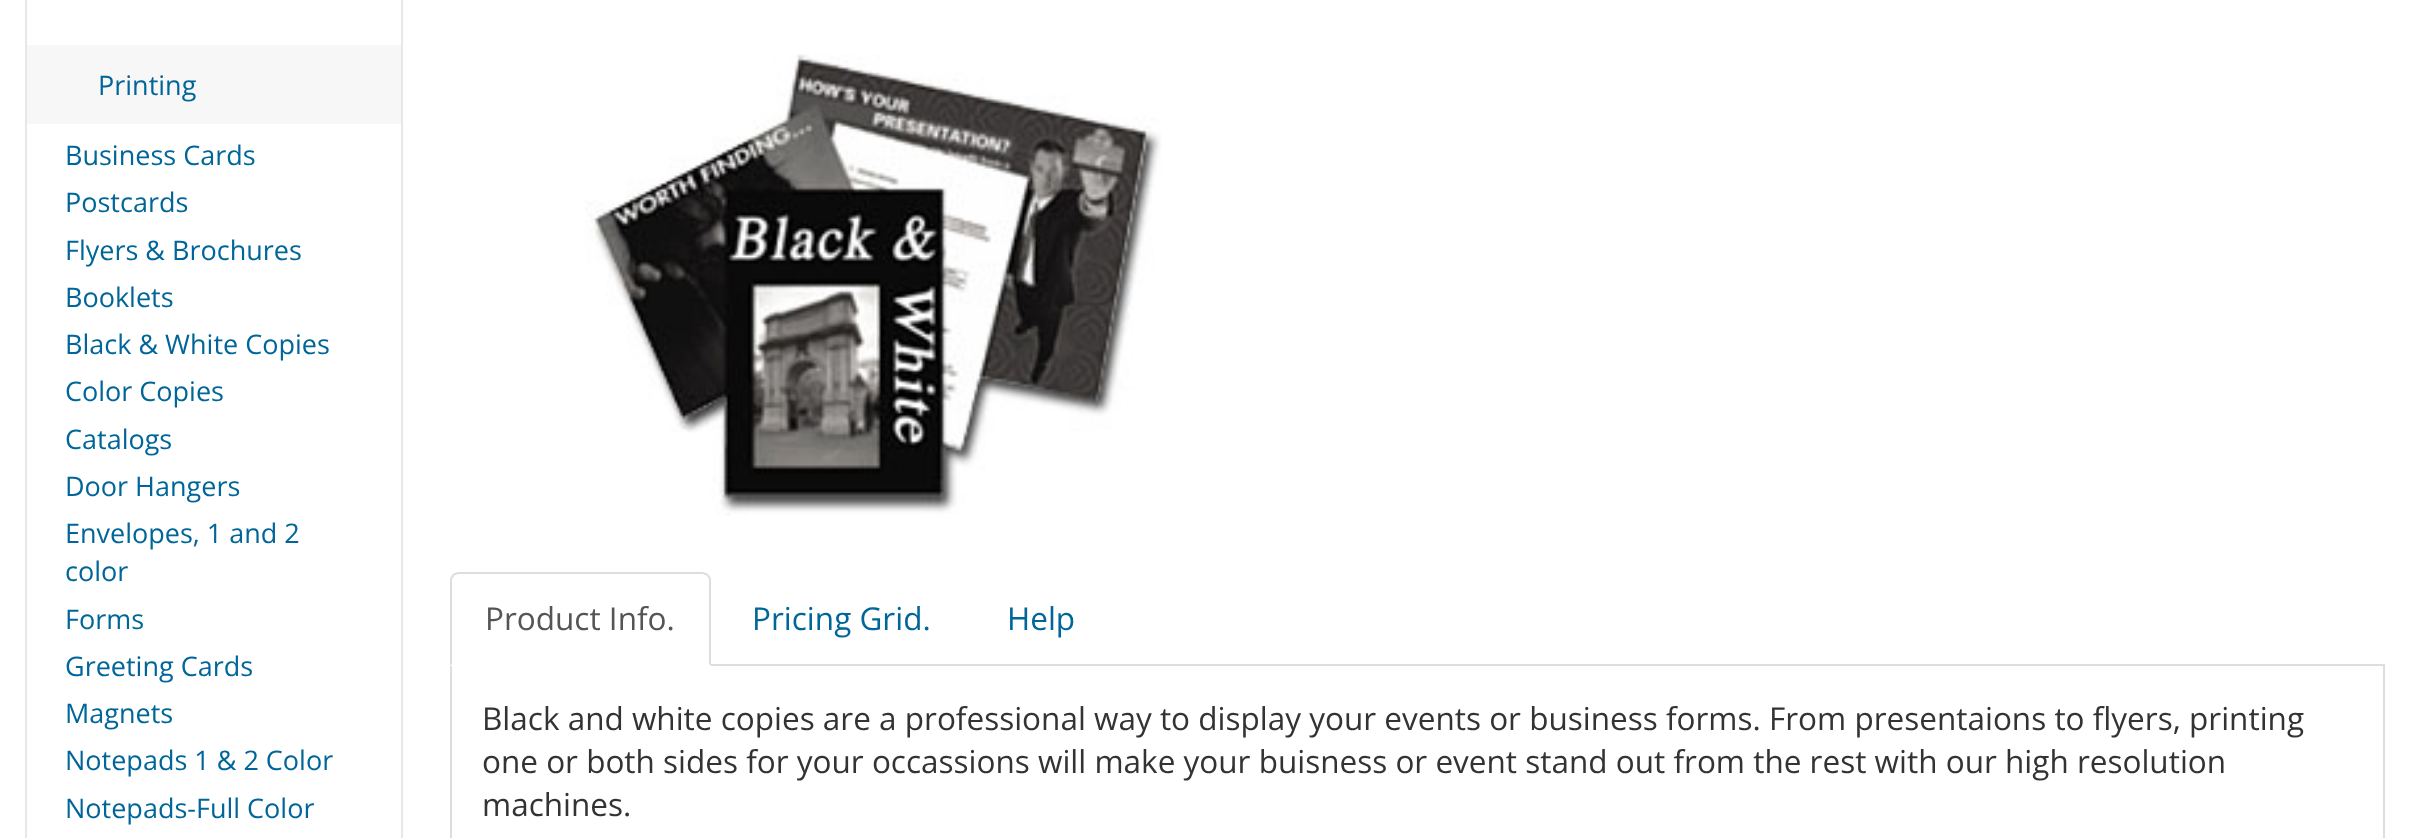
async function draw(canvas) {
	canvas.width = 2409;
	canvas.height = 838;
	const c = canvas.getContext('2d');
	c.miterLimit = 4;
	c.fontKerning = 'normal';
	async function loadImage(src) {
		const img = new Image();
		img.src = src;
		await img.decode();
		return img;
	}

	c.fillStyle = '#fff';
	c.fillRect(0, 0, 2409, 838);
	c.strokeStyle = '#e7e7e7';
	c.lineWidth = 2;
	c.strokeRect(26, -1, 376, 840);
	c.fillStyle = '#f7f7f7';
	c.fillRect(27, 45, 374, 79);
	c.font = '27px Open Sans';
	c.fillStyle = '#069';
	for (const [text, x, y] of [
		['Printing', 98, 95],
		['Business Cards', 65, 165],
		['Postcards', 65, 212],
		['Flyers & Brochures', 65, 260],
		['Booklets', 65, 307],
		['Black & White Copies', 65, 354],
		['Color Copies', 65, 401],
		['Catalogs', 65, 449],
		['Door Hangers', 65, 496],
		['Envelopes, 1 and 2', 65, 543],
		['color', 65, 581],
		['Forms', 65, 629],
		['Greeting Cards', 65, 676],
		['Magnets', 65, 723],
		['Notepads 1 & 2 Color', 65, 770],
		['Notepads-Full Color', 65, 818],
	]) {
		c.fillText(text, x, y);
	}
	c.drawImage(await loadImage('img1.png'), 585, 54, 577, 462);
	c.fillStyle = '#ddd';
	c.fillRect(711, 664, 1674, 2);
	c.beginPath();
	c.moveTo(459, 572);
	c.bezierCurveTo(457, 572, 454, 573, 453, 574);
	c.lineTo(454, 576);
	c.bezierCurveTo(455, 575, 457, 574, 459, 574);
	c.lineTo(702, 574);
	c.bezierCurveTo(704, 574, 706, 575, 707, 576);
	c.lineTo(708, 574);
	c.bezierCurveTo(707, 573, 704, 572, 702, 572);
	c.closePath();
	c.fill();
	c.beginPath();
	c.moveTo(708, 574);
	c.bezierCurveTo(710, 576, 711, 578, 711, 580);
	c.lineTo(711, 666);
	c.lineTo(709, 664);
	c.lineTo(709, 579);
	c.lineTo(707, 576);
	c.closePath();
	c.fill();
	c.beginPath();
	c.moveTo(450, 666);
	c.lineTo(452, 664);
	c.lineTo(452, 579);
	c.lineTo(454, 576);
	c.lineTo(453, 574);
	c.bezierCurveTo(451, 576, 450, 578, 450, 580);
	c.closePath();
	c.fill();
	c.font = '31.5px Open Sans';
	c.fillStyle = '#555';
	c.fillText('Product Info.', 485, 630);
	c.fillStyle = '#069';
	c.fillText('Pricing Grid.', 752, 630);
	c.fillText('Help', 1007, 630);
	c.fillStyle = '#ddd';
	c.fillRect(2383, 666, 2, 172);
	c.fillRect(450, 666, 2, 172);
	c.fillStyle = '#333';
	for (const [text, x, y] of [
		['Black and white copies are a professional way to display your events or business forms. From presentaions to flyers, printing', 482, 730],
		['one or both sides for your occassions will make your buisness or event stand out from the rest with our high resolution', 482, 773],
		['machines.', 482, 816],
	]) {
		c.fillText(text, x, y);
	}
}

draw(document.querySelector('canvas'));
